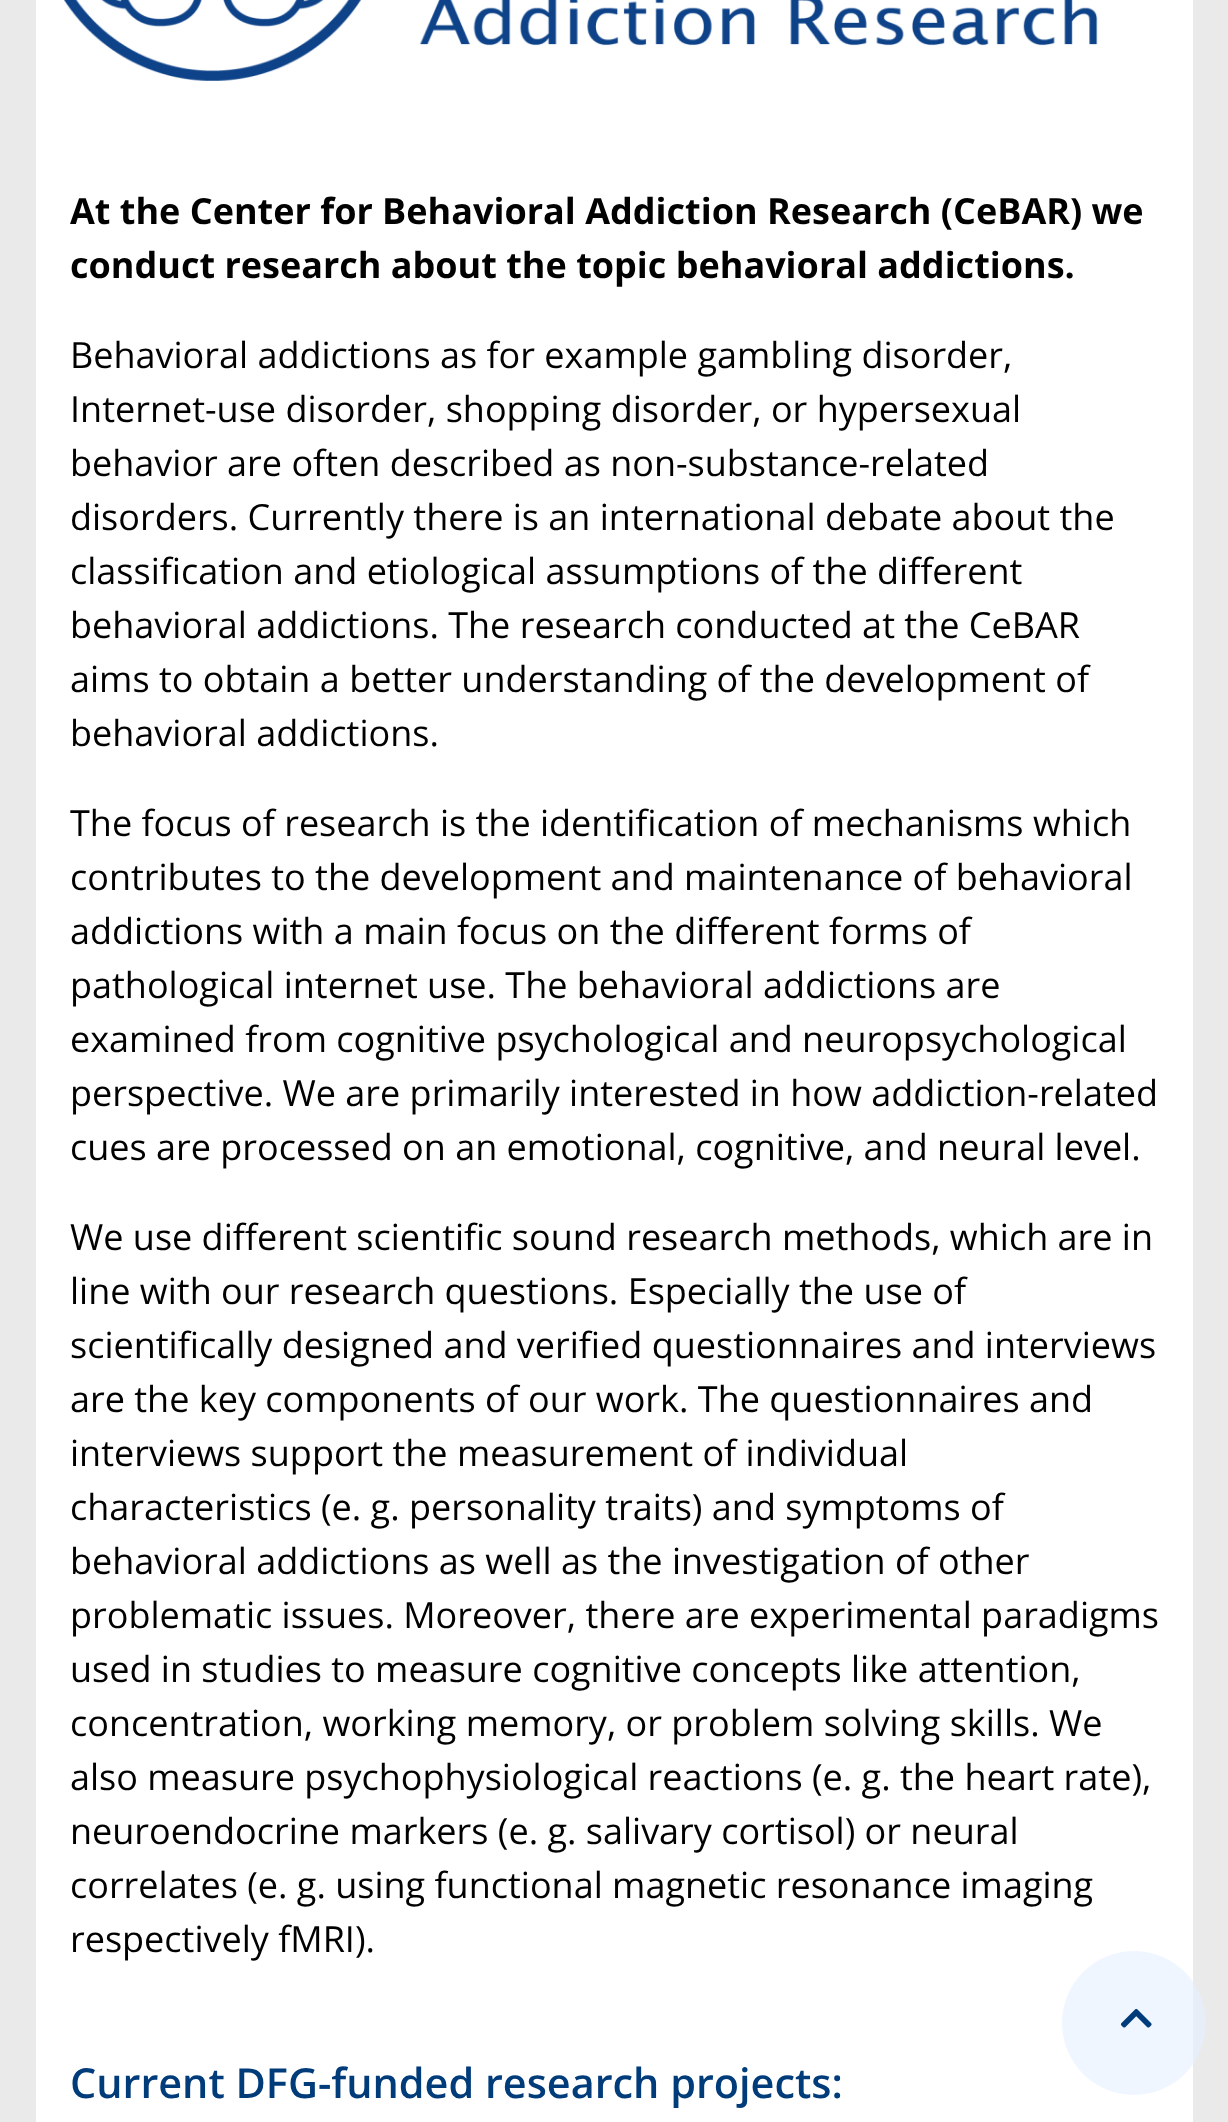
async function draw(canvas) {
	canvas.width = 1228;
	canvas.height = 2122;
	const c = canvas.getContext('2d');
	c.miterLimit = 4;
	c.fontKerning = 'normal';
	async function loadImage(src) {
		const img = new Image();
		img.src = src;
		await img.decode();
		return img;
	}

	c.fillStyle = '#eaeaea';
	c.fillRect(0, 0, 1228, 2122);
	c.fillStyle = '#fff';
	c.fillRect(36, 0, 1157, 2122);
	c.drawImage(await loadImage('img1.png'), 64, 0, 1034, 81);
	c.font = 'bold 36px Open Sans';
	c.fillStyle = '#000';
	c.fillText('At the Center for Behavioral Addiction Research (CeBAR) we', 70, 224);
	c.fillText('conduct research about the topic behavioral addictions.', 70, 278);
	c.font = '36px Open Sans';
	for (const [text, x, y] of [
		['Behavioral addictions as for example gambling disorder,', 70, 368],
		['Internet-use disorder, shopping disorder, or hypersexual', 70, 422],
		['behavior are often described as non-substance-related', 70, 476],
		['disorders. Currently there is an international debate about the', 70, 530],
		['classification and etiological assumptions of the different', 70, 584],
		['behavioral addictions. The research conducted at the CeBAR', 70, 638],
		['aims to obtain a better understanding of the development of', 70, 692],
		['behavioral addictions.', 70, 746],
		['The focus of research is the identification of mechanisms which', 70, 836],
		['contributes to the development and maintenance of behavioral', 70, 890],
		['addictions with a main focus on the different forms of', 70, 944],
		['pathological internet use. The behavioral addictions are', 70, 998],
		['examined from cognitive psychological and neuropsychological', 70, 1052],
		['perspective. We are primarily interested in how addiction-related', 70, 1106],
		['cues are processed on an emotional, cognitive, and neural level.', 70, 1160],
		['We use different scientific sound research methods, which are in', 70, 1250],
		['line with our research questions. Especially the use of', 70, 1304],
		['scientifically designed and verified questionnaires and interviews', 70, 1358],
		['are the key components of our work. The questionnaires and', 70, 1412],
		['interviews support the measurement of individual', 70, 1466],
		['characteristics (e. g. personality traits) and symptoms of', 70, 1520],
		['behavioral addictions as well as the investigation of other', 70, 1574],
		['problematic issues. Moreover, there are experimental paradigms', 70, 1628],
		['used in studies to measure cognitive concepts like attention,', 70, 1682],
		['concentration, working memory, or problem solving skills. We', 70, 1736],
		['also measure psychophysiological reactions (e. g. the heart rate),', 70, 1790],
		['neuroendocrine markers (e. g. salivary cortisol) or neural', 70, 1844],
		['correlates (e. g. using functional magnetic resonance imaging', 70, 1898],
		['respectively fMRI).', 70, 1952],
	]) {
		c.fillText(text, x, y);
	}
	c.font = '600 41.4px Open Sans';
	c.fillStyle = '#003b7a';
	c.fillText('Current DFG-funded research projects:', 70, 2098);
	c.fillStyle = '#e4f0ff99';
	c.beginPath();
	c.arc(1134, 2023, 72, 0, 2 * Math.PI);
	c.fill();
	c.drawImage(await loadImage('img2.png'), 1120, 2008, 32, 20);
}

draw(document.querySelector('canvas'));
